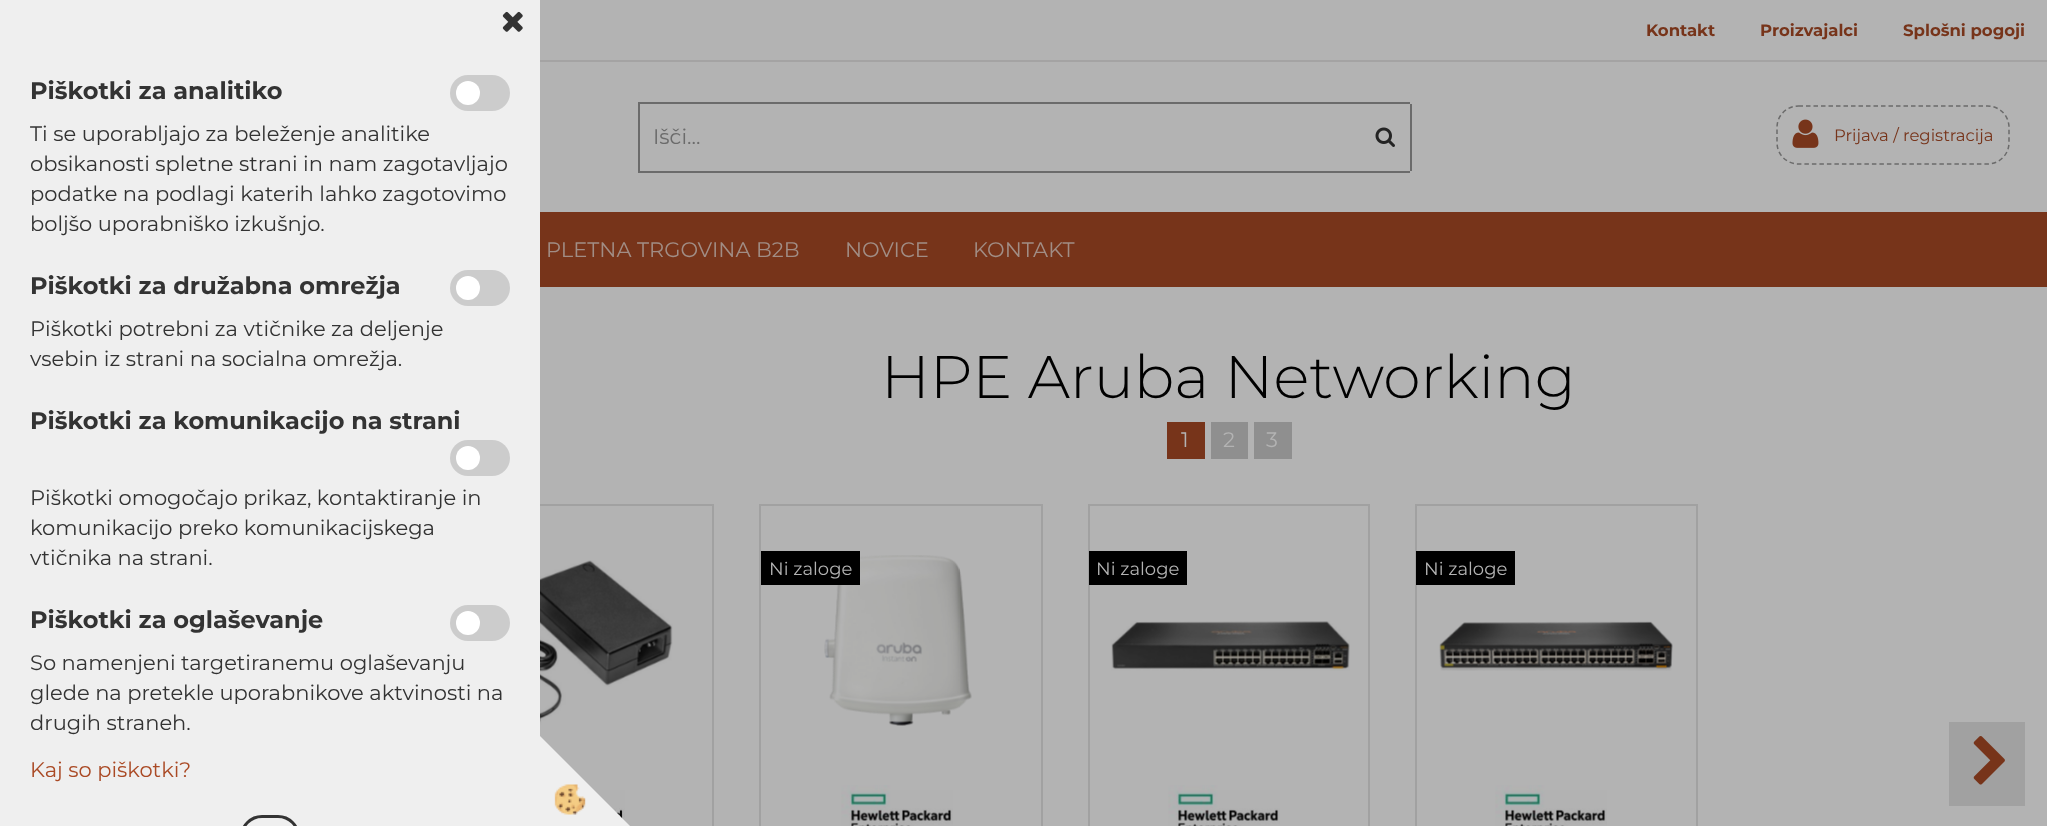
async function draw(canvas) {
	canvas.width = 2047;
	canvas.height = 826;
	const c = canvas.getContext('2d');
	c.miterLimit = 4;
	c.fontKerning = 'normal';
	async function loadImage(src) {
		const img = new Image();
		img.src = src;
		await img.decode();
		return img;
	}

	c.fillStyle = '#b3b3b3';
	c.fillRect(0, 0, 2047, 826);
	c.strokeStyle = '#a1a1a1';
	c.lineWidth = 2;
	c.strokeRect(433, 505, 280, 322);
	c.fillStyle = '#efefef';
	c.fillRect(0, 0, 540, 826);
	c.drawImage(await loadImage('img1.png'), 502, 11, 21, 21);
	c.font = 'bold 24px Montserrat';
	c.fillStyle = '#333';
	c.fillText('Piškotki za analitiko', 30, 99);
	c.fillStyle = '#ccc';
	c.beginPath();
	c.roundRect(450, 75, 60, 36, 18);
	c.fill();
	c.fillStyle = '#fff';
	c.beginPath();
	c.arc(468, 93, 12, 0, 2 * Math.PI);
	c.fill();
	c.font = '21px Montserrat';
	c.fillStyle = '#333';
	for (const [text, x, y] of [
		['Ti se uporabljajo za beleženje analitike', 30, 141],
		['obsikanosti spletne strani in nam zagotavljajo', 30, 171],
		['podatke na podlagi katerih lahko zagotovimo', 30, 201],
		['boljšo uporabniško izkušnjo.', 30, 231],
	]) {
		c.fillText(text, x, y);
	}
	c.font = 'bold 24px Montserrat';
	c.fillText('Piškotki za družabna omrežja', 30, 294);
	c.fillStyle = '#ccc';
	c.beginPath();
	c.roundRect(450, 270, 60, 36, 18);
	c.fill();
	c.fillStyle = '#fff';
	c.beginPath();
	c.arc(468, 288, 12, 0, 2 * Math.PI);
	c.fill();
	c.font = '21px Montserrat';
	c.fillStyle = '#333';
	c.fillText('Piškotki potrebni za vtičnike za deljenje', 30, 336);
	c.fillText('vsebin iz strani na socialna omrežja.', 30, 366);
	c.font = 'bold 24px Montserrat';
	c.fillText('Piškotki za komunikacijo na strani', 30, 429);
	c.fillStyle = '#ccc';
	c.beginPath();
	c.roundRect(450, 440, 60, 36, 18);
	c.fill();
	c.fillStyle = '#fff';
	c.beginPath();
	c.arc(468, 458, 12, 0, 2 * Math.PI);
	c.fill();
	c.font = '21px Montserrat';
	c.fillStyle = '#333';
	for (const [text, x, y] of [
		['Piškotki omogočajo prikaz, kontaktiranje in', 30, 505],
		['komunikacijo preko komunikacijskega', 30, 535],
		['vtičnika na strani.', 30, 565],
	]) {
		c.fillText(text, x, y);
	}
	c.font = 'bold 24px Montserrat';
	c.fillText('Piškotki za oglaševanje', 30, 628);
	c.fillStyle = '#ccc';
	c.beginPath();
	c.roundRect(450, 605, 60, 36, 18);
	c.fill();
	c.fillStyle = '#fff';
	c.beginPath();
	c.arc(468, 623, 12, 0, 2 * Math.PI);
	c.fill();
	c.font = '21px Montserrat';
	c.fillStyle = '#333';
	for (const [text, x, y] of [
		['So namenjeni targetiranemu oglaševanju', 30, 670],
		['glede na pretekle uporabnikove aktvinosti na', 30, 700],
		['drugih straneh.', 30, 730],
	]) {
		c.fillText(text, x, y);
	}
	c.fillStyle = '#aa4a25';
	c.fillText('Kaj so piškotki?', 30, 777);
	c.beginPath();
	c.roundRect(241.5, 816.5, 57, 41, 28.5);
	c.strokeStyle = '#333';
	c.lineWidth = 3;
	c.stroke();
	c.drawImage(await loadImage('img6.png'), 589, 785, 36, 36);
	c.fillStyle = '#efefef';
	c.beginPath();
	c.moveTo(630, 826);
	c.lineTo(540, 826);
	c.lineTo(540, 736);
	c.closePath();
	c.fill();
	c.drawImage(await loadImage('img2.png'), 554, 784, 32, 31);
	c.fillStyle = '#a4a3a3';
	c.fillRect(540, 60, 1507, 2);
	c.font = 'bold 16.5px Montserrat';
	c.fillStyle = '#77341a';
	for (const [text, x, y] of [
		['Kontakt', 1646, 36],
		['Proizvajalci', 1760, 36],
		['Splošni pogoji', 1903, 36],
	]) {
		c.fillText(text, x, y);
	}
	for (const [x, y, w, h, color] of [
		[638, 102, 772, 2, '#6b6b6b'],
		[1410, 104, 2, 67, '#6b6b6b'],
		[638, 171, 772, 2, '#6b6b6b'],
	]) {
		c.fillStyle = color;
		c.fillRect(x, y, w, h);
	}
	c.drawImage(await loadImage('img3.png'), 1375, 127, 20, 20);
	c.fillRect(638, 102, 2, 71);
	c.font = '21px Montserrat';
	c.fillText('Išči...', 653, 144);
	c.beginPath();
	c.moveTo(1798.5, 106);
	c.lineTo(1987.5, 106);
	c.bezierCurveTo(1999.5, 106, 2009, 115.5, 2009, 127.5);
	c.lineTo(2009, 142.5);
	c.bezierCurveTo(2009, 154.5, 1999.5, 164, 1987.5, 164);
	c.lineTo(1798.5, 164);
	c.bezierCurveTo(1786.5, 164, 1777, 154.5, 1777, 142.5);
	c.lineTo(1777, 127.5);
	c.bezierCurveTo(1777, 115.5, 1786.5, 106, 1798.5, 106);
	c.closePath();
	c.strokeStyle = '#6b6b6b';
	c.lineWidth = 1.5;
	c.setLineDash([4.5, 3]);
	c.stroke();
	c.drawImage(await loadImage('img4.png'), 1792, 119, 27, 29);
	c.font = '16.5px Montserrat';
	c.fillStyle = '#77341a';
	c.fillText('Prijava / registracija', 1834, 141);
	c.fillRect(540, 212, 1507, 75);
	c.font = '21px Montserrat';
	c.fillStyle = '#a18d85';
	for (const [text, x, y] of [
		['PLETNA TRGOVINA B2B', 546, 257],
		['NOVICE', 845, 257],
		['KONTAKT', 973, 257],
	]) {
		c.fillText(text, x, y);
	}
	c.font = '300 60px Montserrat';
	c.fillStyle = '#000';
	c.fillText('HPE Aruba Networking', 881, 398);
	c.fillStyle = '#77341a';
	c.fillRect(1167, 422, 38, 37);
	c.font = '21px Montserrat';
	c.fillStyle = '#b3b3b3';
	c.fillText('1', 1181, 447);
	c.fillStyle = '#8f8f8f';
	c.fillRect(1211, 422, 37, 37);
	c.fillStyle = '#b3b3b3';
	c.fillText('2', 1223, 447);
	c.fillStyle = '#8f8f8f';
	c.fillRect(1254, 422, 38, 37);
	c.fillStyle = '#b3b3b3';
	c.fillText('3', 1266, 447);
	c.drawImage(await loadImage('img5.png'), 540, 560, 133, 170);
	c.strokeStyle = '#a1a1a1';
	c.lineWidth = 2;
	c.setLineDash([]);
	c.strokeRect(760, 505, 282, 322);
	c.drawImage(await loadImage('img7.png'), 824, 555, 148, 171);
	c.fillStyle = '#000';
	c.fillRect(761, 551, 99, 34);
	c.font = '18px Montserrat';
	c.fillStyle = '#b3b3b3';
	c.fillText('Ni zaloge', 769, 575);
	c.drawImage(await loadImage('img8.png'), 841, 785, 112, 41);
	c.strokeRect(1089, 505, 280, 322);
	c.fillStyle = '#000';
	c.fillRect(1089, 551, 98, 34);
	c.fillStyle = '#b3b3b3';
	c.fillText('Ni zaloge', 1096, 575);
	c.drawImage(await loadImage('img9.png'), 1111, 621, 239, 50);
	c.drawImage(await loadImage('img8.png'), 1168, 785, 112, 41);
	c.strokeRect(1416, 505, 281, 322);
	c.fillStyle = '#000';
	c.fillRect(1416, 551, 99, 34);
	c.fillStyle = '#b3b3b3';
	c.fillText('Ni zaloge', 1424, 575);
	c.drawImage(await loadImage('img10.png'), 1439, 621, 234, 50);
	c.drawImage(await loadImage('img8.png'), 1495, 785, 112, 41);
	c.fillStyle = '#a1a1a1';
	c.fillRect(1949, 722, 76, 84);
	c.drawImage(await loadImage('img11.png'), 1973, 736, 32, 49);
}

draw(document.querySelector('canvas'));
